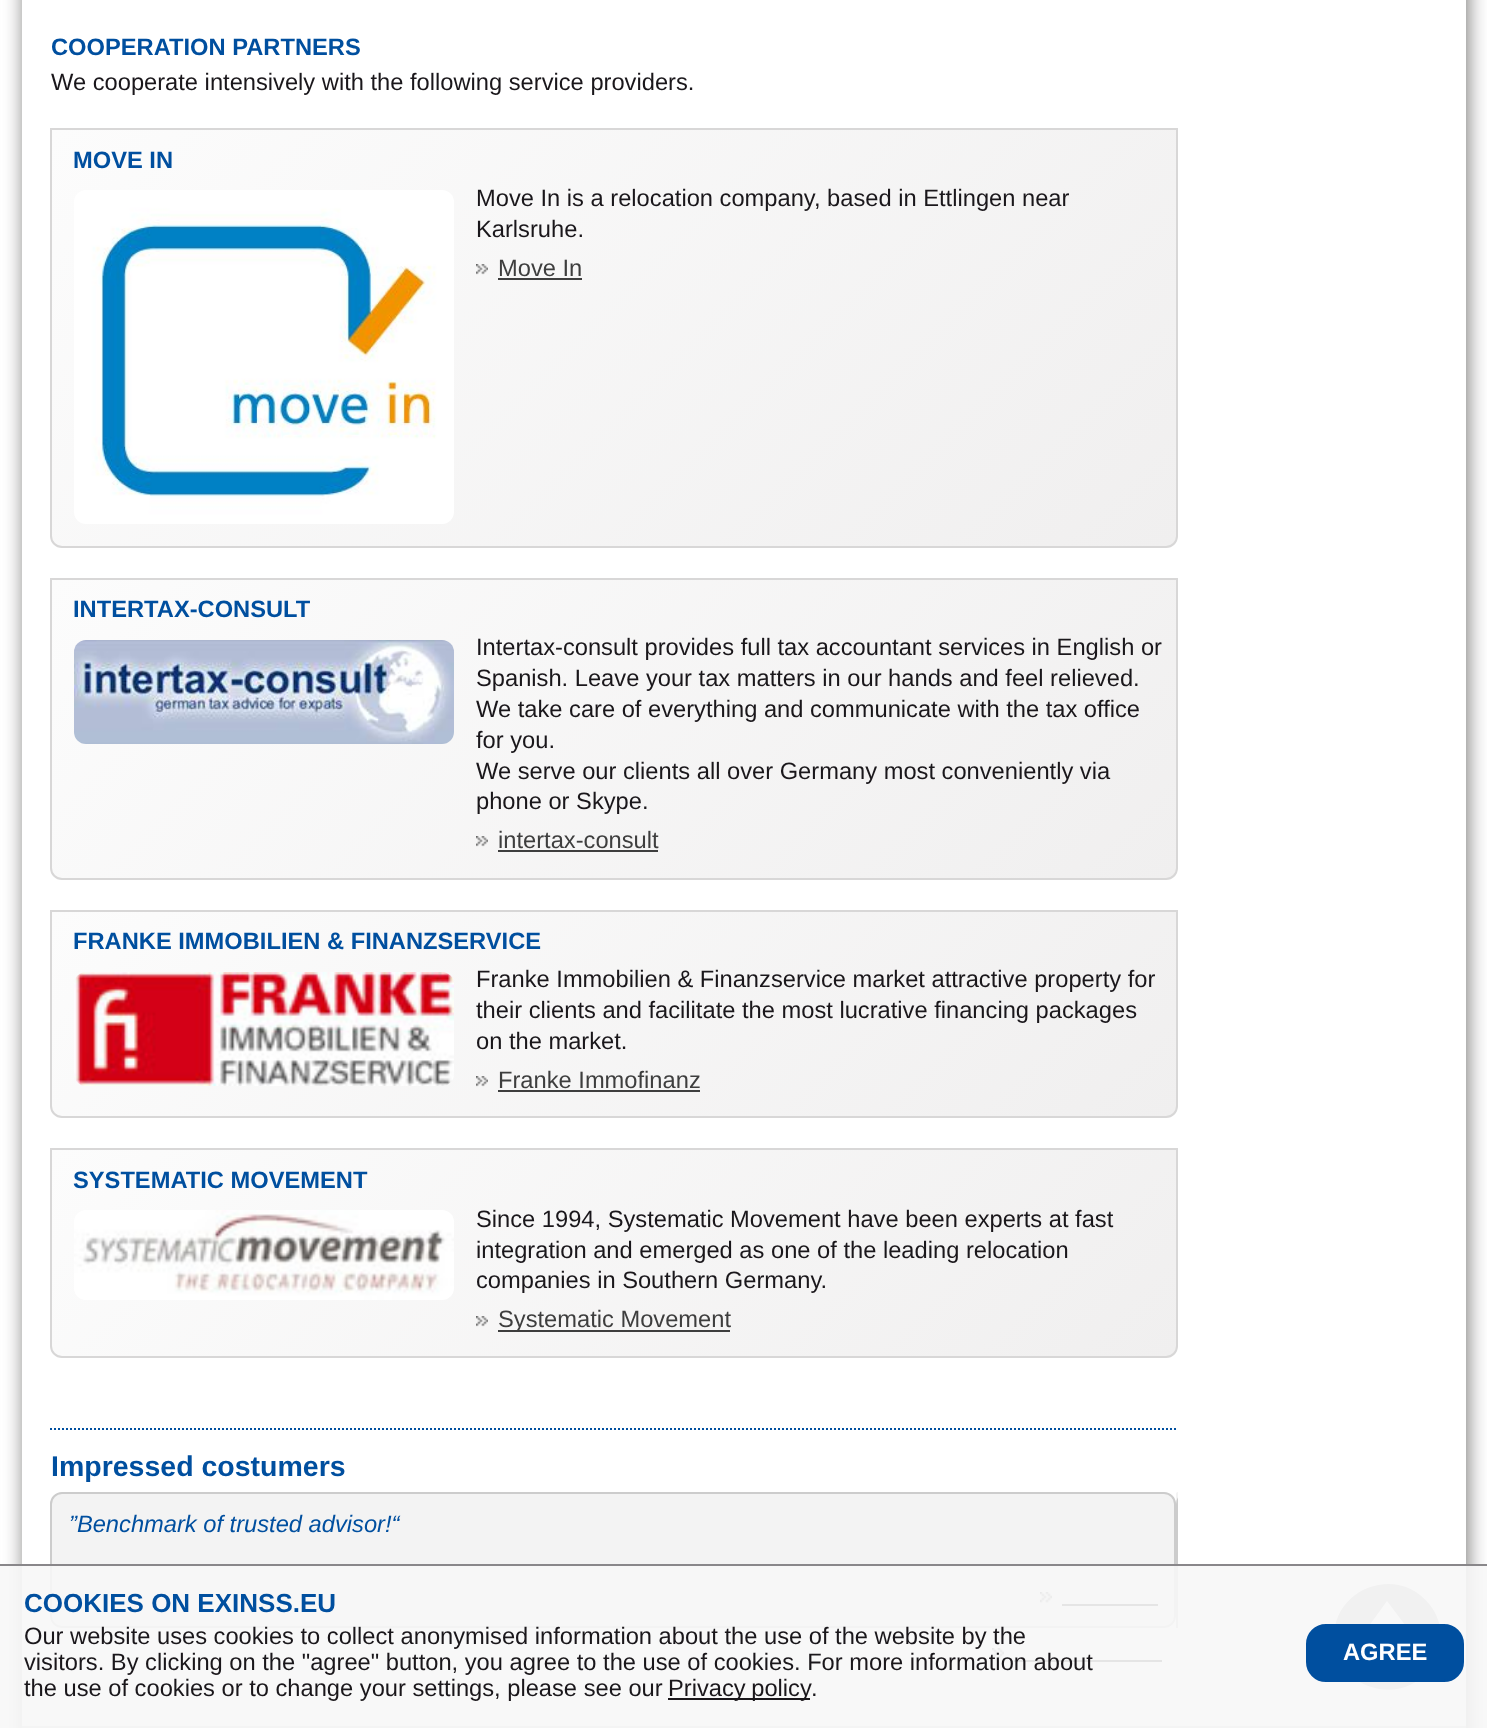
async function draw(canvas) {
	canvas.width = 1487;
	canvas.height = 1728;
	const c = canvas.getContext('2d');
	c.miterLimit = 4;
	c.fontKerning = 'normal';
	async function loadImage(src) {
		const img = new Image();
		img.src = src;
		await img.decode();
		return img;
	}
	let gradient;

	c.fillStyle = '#fff';
	c.fillRect(0, 0, 1487, 1728);
	c.save();
	c.beginPath();
	c.moveTo(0, 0);
	c.lineTo(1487, 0);
	c.lineTo(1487, 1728);
	c.lineTo(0, 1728);
	c.closePath();
	c.moveTo(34, -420);
	c.lineTo(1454, -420);
	c.bezierCurveTo(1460.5, -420, 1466, -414.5, 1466, -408);
	c.lineTo(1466, 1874);
	c.bezierCurveTo(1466, 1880.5, 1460.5, 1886, 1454, 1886);
	c.lineTo(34, 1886);
	c.bezierCurveTo(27.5, 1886, 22, 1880.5, 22, 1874);
	c.lineTo(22, -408);
	c.bezierCurveTo(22, -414.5, 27.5, -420, 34, -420);
	c.closePath();
	c.clip('evenodd');
	c.fillStyle = '#7a7977';
	c.filter = 'blur(10px)';
	c.beginPath();
	c.roundRect(24, -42, 1444, 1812, 12);
	c.fill();
	c.filter = 'none';
	c.restore();
	c.font = 'bold 23.7px Liberation Sans';
	c.fillStyle = '#004f9f';
	c.fillText('COOPERATION PARTNERS', 51, 55);
	c.font = '23.7px Liberation Sans';
	c.fillStyle = '#1a171b';
	c.fillText('We cooperate intensively with the following service providers.', 51, 90);
	c.save();
	c.beginPath();
	c.roundRect(50, 128, 1128, 420, [0, 0, 12, 12]);
	c.clip();
	gradient = c.createLinearGradient(229, -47, 999, 723);
	gradient.addColorStop(0, '#fcfcfc');
	gradient.addColorStop(1, '#f0efef');
	c.fillStyle = gradient;
	c.fillRect(52, 130, 1124, 416);
	c.restore();
	c.beginPath();
	c.roundRect(51, 129, 1126, 418, [0, 0, 11, 11]);
	c.strokeStyle = '#d8d7d7';
	c.lineWidth = 2;
	c.stroke();
	c.font = 'bold 23.7px Liberation Sans';
	c.fillStyle = '#004f9f';
	c.fillText('MOVE IN', 73, 168);
	c.drawImage(await loadImage('img1.png'), 74, 190, 380, 334);
	c.font = '23.7px Liberation Sans';
	c.fillStyle = '#1a171b';
	c.fillText('Move In is a relocation company, based in Ettlingen near', 476, 206);
	c.fillText('Karlsruhe.', 476, 237);
	c.drawImage(await loadImage('img2.png'), 476, 264, 12, 11);
	c.fillStyle = '#3e3e3e';
	c.fillText('Move In', 498, 276);
	c.fillRect(498, 278, 84, 2);
	c.save();
	c.beginPath();
	c.roundRect(50, 578, 1128, 302, [0, 0, 12, 12]);
	c.clip();
	gradient = c.createLinearGradient(258, 374, 970, 1085);
	gradient.addColorStop(0, '#fcfcfc');
	gradient.addColorStop(1, '#f0efef');
	c.fillStyle = gradient;
	c.fillRect(52, 580, 1124, 298);
	c.restore();
	c.beginPath();
	c.roundRect(51, 579, 1126, 300, [0, 0, 11, 11]);
	c.stroke();
	c.font = 'bold 23.7px Liberation Sans';
	c.fillStyle = '#004f9f';
	c.fillText('INTERTAX-CONSULT', 73, 617);
	c.drawImage(await loadImage('img3.png'), 74, 640, 380, 104);
	c.font = '23.7px Liberation Sans';
	c.fillStyle = '#1a171b';
	for (const [text, x, y] of [
		['Intertax-consult provides full tax accountant services in English or', 476, 655],
		['Spanish. Leave your tax matters in our hands and feel relieved.', 476, 686],
		['We take care of everything and communicate with the tax office', 476, 717],
		['for you.', 476, 748],
		['We serve our clients all over Germany most conveniently via', 476, 779],
		['phone or Skype.', 476, 809],
	]) {
		c.fillText(text, x, y);
	}
	c.drawImage(await loadImage('img4.png'), 476, 836, 12, 11);
	c.fillStyle = '#3e3e3e';
	c.fillText('intertax-consult', 498, 848);
	c.fillRect(498, 850, 160, 2);
	c.save();
	c.beginPath();
	c.roundRect(50, 910, 1128, 208, [0, 0, 12, 12]);
	c.clip();
	gradient = c.createLinearGradient(282, 682, 946, 1346);
	gradient.addColorStop(0, '#fcfcfc');
	gradient.addColorStop(1, '#f0efef');
	c.fillStyle = gradient;
	c.fillRect(52, 912, 1124, 204);
	c.restore();
	c.beginPath();
	c.roundRect(51, 911, 1126, 206, [0, 0, 11, 11]);
	c.stroke();
	c.font = 'bold 23.7px Liberation Sans';
	c.fillStyle = '#004f9f';
	c.fillText('FRANKE IMMOBILIEN & FINANZSERVICE', 73, 949);
	c.drawImage(await loadImage('img5.png'), 74, 972, 380, 114);
	c.font = '23.7px Liberation Sans';
	c.fillStyle = '#1a171b';
	for (const [text, x, y] of [
		['Franke Immobilien & Finanzservice market attractive property for', 476, 987],
		['their clients and facilitate the most lucrative financing packages', 476, 1018],
		['on the market.', 476, 1049],
	]) {
		c.fillText(text, x, y);
	}
	c.drawImage(await loadImage('img6.png'), 476, 1076, 12, 11);
	c.fillStyle = '#3e3e3e';
	c.fillText('Franke Immofinanz', 498, 1088);
	c.fillRect(498, 1090, 202, 2);
	c.save();
	c.beginPath();
	c.roundRect(50, 1148, 1128, 210, [0, 0, 12, 12]);
	c.clip();
	gradient = c.createLinearGradient(281, 921, 947, 1586);
	gradient.addColorStop(0, '#fcfcfc');
	gradient.addColorStop(1, '#f0efef');
	c.fillStyle = gradient;
	c.fillRect(52, 1150, 1124, 206);
	c.restore();
	c.beginPath();
	c.roundRect(51, 1149, 1126, 208, [0, 0, 11, 11]);
	c.stroke();
	c.font = 'bold 23.7px Liberation Sans';
	c.fillStyle = '#004f9f';
	c.fillText('SYSTEMATIC MOVEMENT', 73, 1188);
	c.drawImage(await loadImage('img7.png'), 74, 1210, 380, 90);
	c.font = '23.7px Liberation Sans';
	c.fillStyle = '#1a171b';
	for (const [text, x, y] of [
		['Since 1994, Systematic Movement have been experts at fast', 476, 1227],
		['integration and emerged as one of the leading relocation', 476, 1258],
		['companies in Southern Germany.', 476, 1288],
	]) {
		c.fillText(text, x, y);
	}
	c.drawImage(await loadImage('img6.png'), 476, 1316, 12, 11);
	c.fillStyle = '#3e3e3e';
	c.fillRect(498, 1330, 232, 2);
	c.fillText('Systematic Movement', 498, 1327);
	c.beginPath();
	c.moveTo(50, 1429);
	c.lineTo(1178, 1429);
	c.strokeStyle = '#004f9f';
	c.setLineDash([2, 2]);
	c.stroke();
	c.font = 'bold 28.5px Liberation Sans';
	c.fillStyle = '#004f9f';
	c.fillText('Impressed costumers', 51, 1476);
	c.fillStyle = '#f3f3f3';
	c.beginPath();
	c.roundRect(51, 1493, 1124, 134, 11);
	c.fill();
	c.strokeStyle = '#ccc';
	c.setLineDash([]);
	c.stroke();
	c.font = 'italic 23.7px Liberation Sans';
	c.fillStyle = '#004f9f';
	c.fillText('”Benchmark of trusted advisor!“', 69, 1532);
	c.drawImage(await loadImage('img8.png'), 1040, 1592, 12, 11);
	c.fillStyle = '#3e3e3e';
	c.fillRect(1062, 1604, 96, 2);
	c.fillStyle = '#f3f3f3';
	c.beginPath();
	c.roundRect(1176, 1492, 2, 136, [12, 0, 0, 0]);
	c.fill();
	c.save();
	c.beginPath();
	c.rect(50, 1492, 1128, 136);
	c.clip();
	c.beginPath();
	c.roundRect(1177, 1493, 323, 182, 11);
	c.stroke();
	c.restore();
	c.drawImage(await loadImage('img9.png'), 992, 1648, 12, 11);
	c.fillStyle = '#3e3e3e';
	c.fillRect(1014, 1660, 148, 2);
	c.fillStyle = '#d8d7d7';
	c.fillRect(22, 1726, 1444, 2);
	c.fillStyle = '#b7b6b6';
	c.beginPath();
	c.moveTo(1334, 1637);
	c.bezierCurveTo(1334, 1587, 1399, 1564, 1430, 1605);
	c.bezierCurveTo(1437, 1614, 1441, 1625, 1441, 1637);
	c.bezierCurveTo(1441, 1649, 1437, 1660, 1430, 1669);
	c.bezierCurveTo(1399, 1709, 1334, 1687, 1334, 1637);
	c.closePath();
	c.moveTo(1361, 1637);
	c.lineTo(1378, 1637);
	c.lineTo(1378, 1663);
	c.lineTo(1396, 1663);
	c.lineTo(1396, 1637);
	c.lineTo(1414, 1637);
	c.lineTo(1387, 1601);
	c.closePath();
	c.fill();
	c.fillStyle = '#f7f7f7e6';
	c.fillRect(0, 1566, 1487, 162);
	c.fillStyle = '#89878a';
	c.fillRect(0, 1564, 1487, 2);
	c.font = 'bold 26px Liberation Sans';
	c.fillStyle = '#004f9f';
	c.fillText('COOKIES ON EXINSS.EU', 24, 1612);
	c.font = '23.7px Liberation Sans';
	c.fillStyle = '#1a171b';
	for (const [text, x, y] of [
		['Our website uses cookies to collect anonymised information about the use of the website by the', 24, 1644],
		['visitors. By clicking on the "agree" button, you agree to the use of cookies. For more information about', 24, 1670],
		['the use of cookies or to change your settings, please see our', 24, 1696],
	]) {
		c.fillText(text, x, y);
	}
	c.fillRect(668, 1698, 142, 2);
	c.wordSpacing = '-1px';
	c.fillText('Privacy policy', 668, 1696);
	c.wordSpacing = '0px';
	c.fillText('.', 811, 1696);
	c.fillStyle = '#004f9f';
	c.beginPath();
	c.roundRect(1307, 1625, 156, 56, 19);
	c.fill();
	c.strokeStyle = '#004f9f';
	c.stroke();
	c.font = 'bold 23.7px Liberation Sans';
	c.fillStyle = '#fff';
	c.fillText('AGREE', 1343, 1660);
}

draw(document.querySelector('canvas'));
